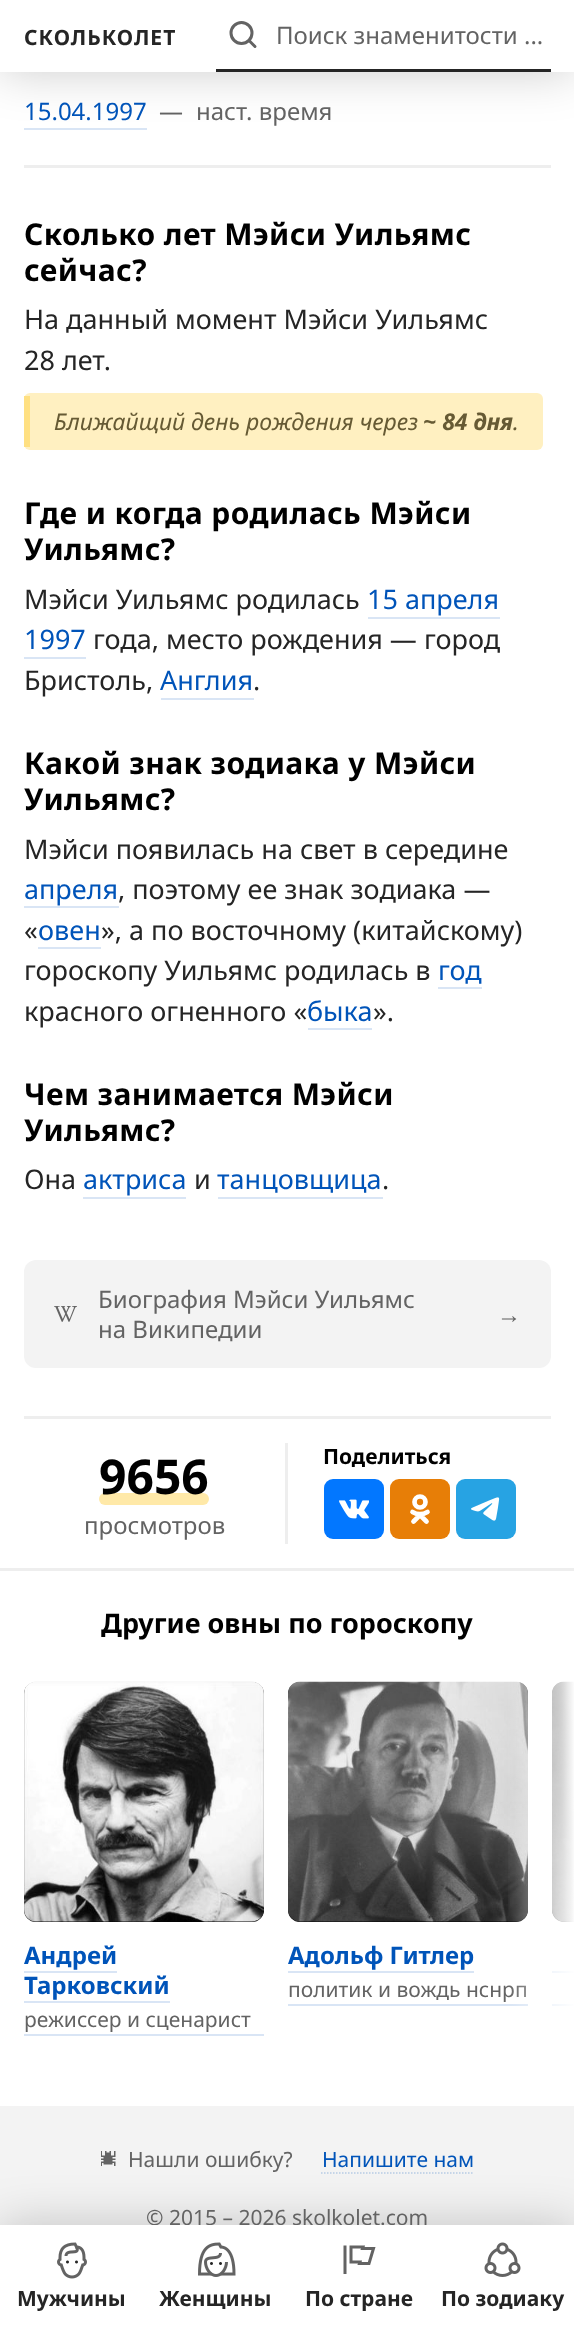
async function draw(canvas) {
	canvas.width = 574;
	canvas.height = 2327;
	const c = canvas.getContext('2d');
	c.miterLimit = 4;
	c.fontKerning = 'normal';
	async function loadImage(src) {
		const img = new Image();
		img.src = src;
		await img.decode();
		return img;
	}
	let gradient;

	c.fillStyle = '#fff';
	c.fillRect(0, 0, 574, 2327);
	c.fillStyle = '#d9e5f5';
	c.fillRect(24, 128, 123, 2);
	c.fillStyle = '#00000033';
	c.filter = 'blur(24px)';
	c.beginPath();
	c.rect(0, 0, 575, 72);
	c.fill();
	c.filter = 'none';
	c.fillStyle = '#fff';
	c.fillRect(0, 0, 574, 72);
	c.letterSpacing = '1px';
	c.font = 'bold 21px Noto Sans';
	c.fillStyle = '#252525';
	c.fillText('СКОЛЬКОЛЕТ', 24, 45);
	c.fillRect(216, 69, 335, 3);
	c.beginPath();
	c.arc(241.5, 33, 10.5, 0, 2 * Math.PI);
	c.strokeStyle = '#636363';
	c.lineWidth = 3;
	c.stroke();
	c.beginPath();
	c.moveTo(255, 46.5);
	c.lineTo(249, 40.5);
	c.lineCap = 'round';
	c.stroke();
	c.letterSpacing = '0px';
	c.font = '24px Noto Sans';
	c.fillStyle = '#636363';
	c.fillText('Поиск знаменитости ...', 276, 44);
	c.fillStyle = '#f3f3f3';
	c.fillRect(0, 2106, 574, 119);
	c.drawImage(await loadImage('img10.png'), 101, 2151, 15, 15);
	c.beginPath();
	c.moveTo(321, 2173);
	c.lineTo(474, 2173);
	c.strokeStyle = '#b6cbe5';
	c.lineWidth = 1.5;
	c.lineCap = 'butt';
	c.setLineDash([1.5, 1.5]);
	c.stroke();
	c.fillStyle = '#00000033';
	c.filter = 'blur(24px)';
	c.beginPath();
	c.rect(0, 2225, 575, 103);
	c.fill();
	c.filter = 'none';
	c.font = '21px Noto Sans';
	c.fillStyle = '#636363';
	c.fillText('© 2015 – 2026 skolkolet.com', 146, 2225);
	c.fillStyle = '#fff';
	c.fillRect(0, 2225, 574, 102);
	c.drawImage(await loadImage('img1.png'), 57, 2242, 30, 37);
	c.font = 'bold 21px Noto Sans';
	c.fillStyle = '#252525';
	c.fillText('Мужчины', 17, 2306);
	c.drawImage(await loadImage('img2.png'), 198, 2242, 38, 35);
	c.fillText('Женщины', 159, 2306);
	c.beginPath();
	c.moveTo(345, 2245.5);
	c.lineTo(345, 2274);
	c.moveTo(351, 2262);
	c.lineTo(351, 2247);
	c.lineTo(363, 2247);
	c.lineTo(362.5, 2248.5);
	c.lineTo(373.5, 2248.5);
	c.lineTo(369, 2263.5);
	c.lineTo(359.5, 2263.5);
	c.lineTo(360, 2262);
	c.closePath();
	c.strokeStyle = '#636363';
	c.lineWidth = 3;
	c.setLineDash([]);
	c.stroke();
	c.fillText('По стране', 305, 2306);
	c.drawImage(await loadImage('img3.png'), 484, 2242, 37, 35);
	c.fillText('По зодиаку', 441, 2306);
	c.fillStyle = '#eee';
	c.fillRect(24, 165, 527, 3);
	c.font = '24px Noto Sans';
	c.fillStyle = '#0054b9';
	c.fillText('15.04.1997', 24, 120);
	c.fillStyle = '#636363';
	c.fillText('—', 159, 120);
	c.fillText('наст. время', 196, 120);
	c.letterSpacing = '0.4px';
	c.font = 'bold 30px Noto Sans';
	c.fillStyle = '#000';
	c.fillText('Сколько лет Мэйси Уильямс', 24, 245);
	c.fillText('сейчас?', 24, 281);
	c.letterSpacing = '0px';
	c.font = '27px Noto Sans';
	c.fillStyle = '#252525';
	c.fillText('На данный момент Мэйси Уильямс', 24, 329);
	c.fillText('28 лет.', 24, 370);
	c.fillStyle = '#fff0c1';
	c.beginPath();
	c.roundRect(24, 393, 519, 57, 6);
	c.fill();
	c.fillStyle = '#ffe082';
	c.fillRect(24, 396, 6, 51);
	c.font = 'italic 23px Noto Sans';
	c.fillStyle = '#665a34';
	c.fillText('Ближайщий день рождения через', 54, 430);
	c.font = 'italic bold 23px Noto Sans';
	c.fillText('~ 84 дня', 423, 430);
	c.font = 'italic 23px Noto Sans';
	c.fillText('.', 513, 430);
	c.letterSpacing = '0.4px';
	c.font = 'bold 30px Noto Sans';
	c.fillStyle = '#000';
	c.fillText('Где и когда родилась Мэйси', 24, 524);
	c.fillText('Уильямс?', 24, 560);
	c.letterSpacing = '0px';
	c.font = '27px Noto Sans';
	c.fillStyle = '#252525';
	c.fillText('Мэйси Уильямс родилась', 24, 609);
	c.fillStyle = '#0054b9';
	c.fillText('15 апреля', 367, 609);
	c.fillStyle = '#d9e5f5';
	c.fillRect(368, 617, 132, 2);
	c.fillStyle = '#0054b9';
	c.fillText('1997', 24, 649);
	c.fillStyle = '#d9e5f5';
	c.fillRect(24, 657, 62, 2);
	c.fillStyle = '#252525';
	c.fillText('года, место рождения — город', 93, 649);
	c.fillText('Бристоль,', 24, 690);
	c.fillStyle = '#0054b9';
	c.fillText('Англия', 160, 690);
	c.fillStyle = '#d9e5f5';
	c.fillRect(161, 698, 93, 2);
	c.fillStyle = '#252525';
	c.fillText('.', 253, 690);
	c.letterSpacing = '0.4px';
	c.font = 'bold 30px Noto Sans';
	c.fillStyle = '#000';
	c.fillText('Какой знак зодиака у Мэйси', 24, 774);
	c.fillText('Уильямс?', 24, 810);
	c.letterSpacing = '0px';
	c.font = '27px Noto Sans';
	c.fillStyle = '#252525';
	c.fillText('Мэйси появилась на свет в середине', 24, 859);
	c.fillStyle = '#0054b9';
	c.fillText('апреля', 24, 899);
	c.fillStyle = '#d9e5f5';
	c.fillRect(24, 906, 95, 2);
	c.fillStyle = '#252525';
	c.fillText(', поэтому ее знак зодиака —', 118, 899);
	c.fillText('«', 24, 940);
	c.fillStyle = '#0054b9';
	c.fillText('овен', 38, 940);
	c.fillStyle = '#d9e5f5';
	c.fillRect(38, 947, 63, 2);
	c.fillStyle = '#252525';
	c.fillText('», а по восточному (китайскому)', 101, 940);
	c.fillText('гороскопу Уильямс родилась в', 24, 980);
	c.fillStyle = '#0054b9';
	c.fillText('год', 438, 980);
	c.fillStyle = '#d9e5f5';
	c.fillRect(438, 987, 44, 2);
	c.fillStyle = '#252525';
	c.fillText('красного огненного «', 24, 1021);
	c.fillStyle = '#0054b9';
	c.fillText('быка', 307, 1021);
	c.fillStyle = '#d9e5f5';
	c.fillRect(308, 1028, 64, 2);
	c.fillStyle = '#252525';
	c.fillText('».', 373, 1021);
	c.letterSpacing = '0.4px';
	c.font = 'bold 30px Noto Sans';
	c.fillStyle = '#000';
	c.fillText('Чем занимается Мэйси', 24, 1105);
	c.fillText('Уильямс?', 24, 1141);
	c.letterSpacing = '0px';
	c.font = '27px Noto Sans';
	c.fillStyle = '#252525';
	c.fillText('Она', 24, 1189);
	c.fillStyle = '#0054b9';
	c.fillText('актриса', 83, 1189);
	c.fillStyle = '#d9e5f5';
	c.fillRect(83, 1197, 103, 2);
	c.fillStyle = '#252525';
	c.fillText('и', 194, 1189);
	c.fillStyle = '#0054b9';
	c.fillText('танцовщица', 217, 1189);
	c.fillStyle = '#d9e5f5';
	c.fillRect(218, 1197, 165, 2);
	c.fillStyle = '#252525';
	c.fillText('.', 382, 1189);
	c.fillStyle = '#f3f3f3';
	c.beginPath();
	c.roundRect(24, 1260, 527, 108, 12);
	c.fill();
	c.drawImage(await loadImage('img4.png'), 54, 1306, 23, 16);
	c.font = '24px Noto Sans';
	c.fillStyle = '#636363';
	c.fillText('Биография Мэйси Уильямс', 98, 1308);
	c.fillText('на Википедии', 98, 1338);
	c.font = '24px Liberation Serif';
	c.fillText('→', 497, 1323);
	c.fillStyle = '#eee';
	c.fillRect(24, 1416, 527, 3);
	c.fillStyle = '#ffe9a8';
	c.beginPath();
	c.roundRect(99, 1493, 110, 12, 6);
	c.fill();
	c.font = 'bold 48px Noto Sans';
	c.fillStyle = '#000';
	c.fillText('9656', 99, 1494);
	c.font = '24px Noto Sans';
	c.fillStyle = '#636363';
	c.fillText('просмотров', 84, 1534);
	c.fillStyle = '#eee';
	c.fillRect(285, 1443, 3, 101);
	c.font = 'bold 21px Noto Sans';
	c.fillStyle = '#000';
	c.fillText('Поделиться', 323, 1464);
	c.fillStyle = '#0277ff';
	c.beginPath();
	c.roundRect(324, 1479, 60, 60, 9);
	c.fill();
	c.drawImage(await loadImage('img5.png'), 339, 1499, 30, 20);
	c.fillStyle = '#e77e07';
	c.beginPath();
	c.roundRect(390, 1479, 60, 60, 9);
	c.fill();
	c.beginPath();
	c.arc(420, 1502, 5.5, 0, 2 * Math.PI);
	c.strokeStyle = '#fff';
	c.lineWidth = 4.7;
	c.stroke();
	c.beginPath();
	c.moveTo(413.5, 1521.5);
	c.lineTo(420, 1515);
	c.lineTo(426.5, 1521.5);
	c.moveTo(412.5, 1512);
	c.bezierCurveTo(417.5, 1515, 422.5, 1515, 427.5, 1512);
	c.lineCap = 'round';
	c.stroke();
	c.fillStyle = '#27a3e3';
	c.beginPath();
	c.roundRect(456, 1479, 60, 60, 9);
	c.fill();
	c.drawImage(await loadImage('img6.png'), 471, 1497, 29, 24);
	c.fillStyle = '#eee';
	c.fillRect(0, 1568, 574, 3);
	c.font = 'bold 27px Noto Sans';
	c.fillStyle = '#000';
	c.fillText('Другие овны по гороскопу', 101, 1633);
	c.beginPath();
	c.roundRect(24, 1682, 240, 240, 12);
	c.fill();
	c.drawImage(await loadImage('img7.png'), 24, 1681, 240, 241);
	c.font = 'bold 24px Noto Sans';
	c.fillStyle = '#0054b9';
	c.fillText('Андрей', 24, 1964);
	c.fillStyle = '#d9e5f5';
	c.fillRect(24, 1971, 93, 2);
	c.fillStyle = '#0054b9';
	c.fillText('Тарковский', 24, 1994);
	c.fillStyle = '#d9e5f5';
	c.fillRect(24, 2001, 146, 2);
	c.fillRect(24, 2034, 240, 2);
	c.font = '21px Noto Sans';
	c.fillStyle = '#636363';
	c.fillText('режиссер и сценарист', 24, 2027);
	c.fillStyle = '#000';
	c.beginPath();
	c.roundRect(288, 1682, 240, 240, 12);
	c.fill();
	c.drawImage(await loadImage('img8.png'), 288, 1681, 240, 241);
	c.font = 'bold 24px Noto Sans';
	c.fillStyle = '#0054b9';
	c.fillText('Адольф Гитлер', 288, 1964);
	c.fillStyle = '#d9e5f5';
	c.fillRect(288, 1971, 186, 2);
	c.fillRect(288, 2004, 240, 2);
	c.font = '21px Noto Sans';
	c.fillStyle = '#636363';
	c.fillText('политик и вождь нснрп', 288, 1997);
	c.fillStyle = '#000';
	c.beginPath();
	c.moveTo(564, 1682);
	c.lineTo(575, 1682);
	c.lineTo(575, 1922);
	c.lineTo(564, 1922);
	c.bezierCurveTo(557.5, 1922, 552, 1916.5, 552, 1910);
	c.lineTo(552, 1694);
	c.bezierCurveTo(552, 1687.5, 557.5, 1682, 564, 1682);
	c.closePath();
	c.fill();
	c.drawImage(await loadImage('img9.png'), 552, 1681, 22, 241);
	c.fillStyle = '#d9e5f5';
	c.fillRect(552, 1971, 22, 2);
	c.fillRect(552, 2004, 22, 2);
	gradient = c.createLinearGradient(503, 1832, 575, 1832);
	gradient.addColorStop(0, '#ffffff00');
	gradient.addColorStop(0.04, '#ffffff03');
	gradient.addColorStop(0.1, '#ffffff0a');
	gradient.addColorStop(0.16, '#ffffff14');
	gradient.addColorStop(0.22, '#ffffff24');
	gradient.addColorStop(0.29, '#ffffff36');
	gradient.addColorStop(0.37, '#ffffff47');
	gradient.addColorStop(0.44, '#ffffff5c');
	gradient.addColorStop(0.52, '#ffffff75');
	gradient.addColorStop(0.6, '#ffffff8c');
	gradient.addColorStop(0.67, '#ffffffa3');
	gradient.addColorStop(0.75, '#ffffffb8');
	gradient.addColorStop(0.82, '#ffffffcc');
	gradient.addColorStop(0.89, '#ffffffe0');
	gradient.addColorStop(0.95, '#fffffff0');
	gradient.addColorStop(1, '#fff');
	c.fillStyle = gradient;
	c.fillRect(508, 1681, 66, 325);
	c.fillStyle = '#636363';
	c.fillText('Нашли ошибку?', 128, 2167);
	c.fillStyle = '#0054b9';
	c.fillText('Напишите нам', 322, 2167);
}

draw(document.querySelector('canvas'));
